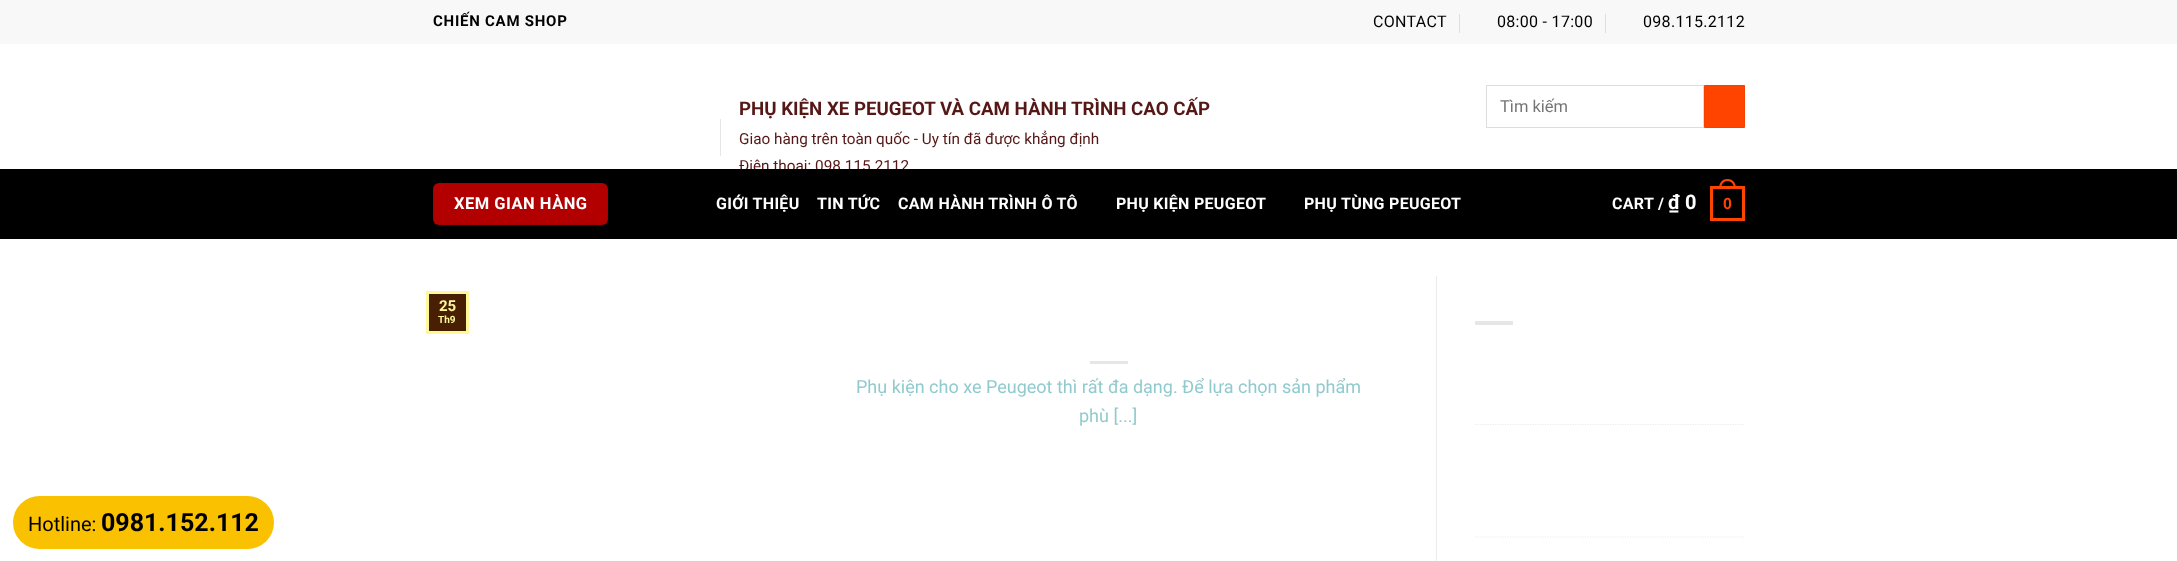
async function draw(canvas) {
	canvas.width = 2177;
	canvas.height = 561;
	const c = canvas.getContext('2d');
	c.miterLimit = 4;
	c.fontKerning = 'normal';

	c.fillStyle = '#fff';
	c.fillRect(0, 0, 2177, 561);
	c.fillStyle = '#f8f8f8';
	c.fillRect(0, 0, 2177, 44);
	c.letterSpacing = '0.75px';
	c.font = 'bold 15px Roboto';
	c.fillStyle = '#000';
	c.fillText('CHIẾN CAM SHOP', 433, 26);
	c.letterSpacing = '0.3px';
	c.font = '16px Roboto';
	c.fillText('CONTACT', 1373, 27);
	c.fillStyle = '#dfdfdf';
	c.fillRect(1459, 14, 1, 19);
	c.fillStyle = '#000';
	c.fillText('08:00 - 17:00', 1497, 27);
	c.fillStyle = '#dfdfdf';
	c.fillRect(1605, 14, 1, 19);
	c.fillStyle = '#000';
	c.fillText('098.115.2112', 1643, 27);
	c.fillStyle = '#e6e6e6';
	c.fillRect(720, 119, 1, 37);
	c.letterSpacing = '0px';
	c.font = 'bold 18.7px Roboto';
	c.fillStyle = '#551816';
	c.fillText('PHỤ KIỆN XE PEUGEOT VÀ CAM HÀNH TRÌNH CAO CẤP', 739, 115);
	c.font = '15.3px Roboto';
	c.fillText('Giao hàng trên toàn quốc - Uy tín đã được khẳng định', 739, 144);
	c.fillText('Điện thoại: 098.115.2112', 739, 171);
	c.strokeStyle = '#ddd';
	c.strokeRect(1486.5, 85.5, 217, 42);
	c.font = '16.5px Roboto';
	c.fillStyle = '#757575';
	c.fillText('Tìm kiếm', 1500, 112);
	c.fillStyle = '#f40';
	c.beginPath();
	c.rect(1704.5, 85.5, 40, 42);
	c.fill();
	c.strokeStyle = '#f24100';
	c.stroke();
	c.fillStyle = '#000';
	c.fillRect(0, 169, 2177, 70);
	c.fillStyle = '#b20000';
	c.beginPath();
	c.roundRect(433, 183, 175, 42, 6);
	c.fill();
	c.strokeStyle = '#0000000d';
	c.strokeRect(433.5, 183.5, 174, 41);
	c.letterSpacing = '0.5px';
	c.font = 'bold 16.5px Roboto';
	c.fillStyle = '#fff';
	c.fillText('XEM GIAN HÀNG', 454, 209);
	c.letterSpacing = '0.3px';
	c.font = 'bold 16px Roboto';
	for (const [text, x, y] of [
		['GIỚI THIỆU', 716, 209],
		['TIN TỨC', 817, 209],
		['CAM HÀNH TRÌNH Ô TÔ', 898, 209],
		['PHỤ KIỆN PEUGEOT', 1116, 209],
		['PHỤ TÙNG PEUGEOT', 1304, 209],
		['CART /', 1612, 209],
	]) {
		c.fillText(text, x, y);
	}
	c.font = 'bold 20px Roboto';
	c.fillText('₫ 0', 1668, 209);
	c.strokeStyle = '#f40';
	c.lineWidth = 3;
	c.strokeRect(1711.5, 187.5, 32, 32);
	c.fillStyle = '#f40';
	c.beginPath();
	c.moveTo(1727.5, 179);
	c.bezierCurveTo(1733.5, 179, 1736, 183.5, 1736, 189);
	c.lineTo(1719, 189);
	c.bezierCurveTo(1719, 183.5, 1721.5, 179, 1727.5, 179);
	c.closePath();
	c.moveTo(1727.5, 181);
	c.bezierCurveTo(1732, 181, 1734, 185, 1734, 189);
	c.lineTo(1721, 189);
	c.bezierCurveTo(1721, 185, 1723, 181, 1727.5, 181);
	c.closePath();
	c.fill('evenodd');
	c.font = 'bold 16px Liberation Sans';
	c.fillText('0', 1723, 209);
	c.fillStyle = '#481f02';
	c.beginPath();
	c.rect(427.5, 292.5, 40, 40);
	c.fill();
	c.strokeStyle = '#fff898';
	c.stroke();
	c.letterSpacing = '0px';
	c.font = 'bold 15px Roboto';
	c.fillStyle = '#fff898';
	c.fillText('25', 439, 311);
	c.font = 'bold 10px Roboto';
	c.fillText('Th9', 438, 323);
	c.fillStyle = '#e6e6e6';
	c.fillRect(1090, 361, 38, 3);
	c.font = '18px Roboto';
	c.fillStyle = '#91cace';
	c.fillText('Phụ kiện cho xe Peugeot thì rất đa dạng. Để lựa chọn sản phẩm', 856, 393);
	c.fillText('phù [...]', 1079, 422);
	c.fillStyle = '#ececec';
	c.fillRect(1436, 276, 1, 285);
	c.fillStyle = '#e6e6e6';
	c.fillRect(1475, 321, 38, 4);
	c.beginPath();
	c.moveTo(1475, 424.5);
	c.lineTo(1745, 424.5);
	c.strokeStyle = '#ececec';
	c.lineWidth = 1.2;
	c.setLineDash([1.25, 1.25]);
	c.stroke();
	c.beginPath();
	c.moveTo(1475, 537);
	c.lineTo(1745, 537);
	c.stroke();
	c.fillStyle = '#fac100';
	c.beginPath();
	c.roundRect(13, 496, 261, 53, 26.5);
	c.fill();
	c.font = '20px Roboto';
	c.fillStyle = '#000';
	c.fillText('Hotline:', 28, 531);
	c.font = 'bold 25px Roboto';
	c.fillText('0981.152.112', 101, 531);
}

draw(document.querySelector('canvas'));
